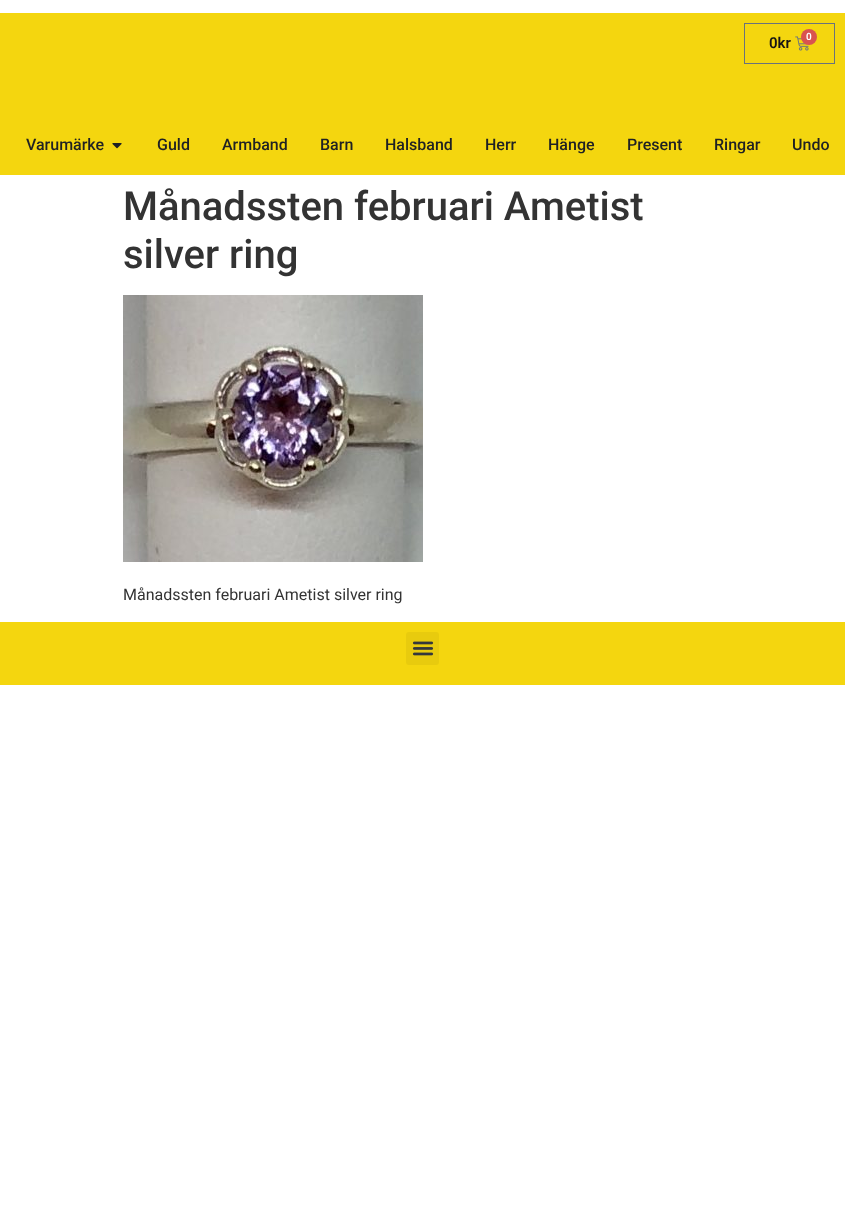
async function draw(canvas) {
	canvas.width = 845;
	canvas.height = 1215;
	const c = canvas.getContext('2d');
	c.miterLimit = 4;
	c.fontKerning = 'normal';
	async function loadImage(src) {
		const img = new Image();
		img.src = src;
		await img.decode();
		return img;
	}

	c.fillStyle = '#fff';
	c.fillRect(0, 0, 845, 1215);
	c.fillStyle = '#f4d60f';
	c.fillRect(0, 13, 845, 162);
	c.strokeStyle = '#69727d';
	c.strokeRect(744.5, 23.5, 90, 40);
	c.font = '600 15px Roboto';
	c.fillStyle = '#171515';
	c.fillText('0kr', 769, 48);
	c.drawImage(await loadImage('img1.png'), 795, 36, 14, 15);
	c.fillStyle = '#d9534f';
	c.beginPath();
	c.arc(809, 37, 8, 0, 2 * Math.PI);
	c.fill();
	c.font = '600 10px Roboto';
	c.fillStyle = '#fff';
	c.fillText('0', 806, 40);
	c.font = '500 16px Roboto';
	c.fillStyle = '#1f2124';
	c.fillText('Varumärke', 26, 150);
	c.drawImage(await loadImage('img2.png'), 112, 143, 10, 6);
	for (const [text, x, y] of [
		['Guld', 157, 150],
		['Armband', 222, 150],
		['Barn', 320, 150],
		['Halsband', 385, 150],
		['Herr', 485, 150],
		['Hänge', 548, 150],
		['Present', 627, 150],
		['Ringar', 714, 150],
		['Undo', 792, 150],
	]) {
		c.fillText(text, x, y);
	}
	c.font = '500 40px Roboto';
	c.fillStyle = '#333';
	c.fillText('Månadssten februari Ametist', 123, 220);
	c.fillText('silver ring', 123, 268);
	c.drawImage(await loadImage('img3.png'), 123, 295, 300, 267);
	c.font = '16px Roboto';
	c.fillText('Månadssten februari Ametist silver ring', 123, 600);
	c.fillStyle = '#f4d60f';
	c.fillRect(0, 622, 845, 63);
	c.fillStyle = '#e8cb0e';
	c.beginPath();
	c.roundRect(406, 632, 33, 33, 3);
	c.fill();
	c.drawImage(await loadImage('img4.png'), 412, 641, 22, 15);
}

draw(document.querySelector('canvas'));
